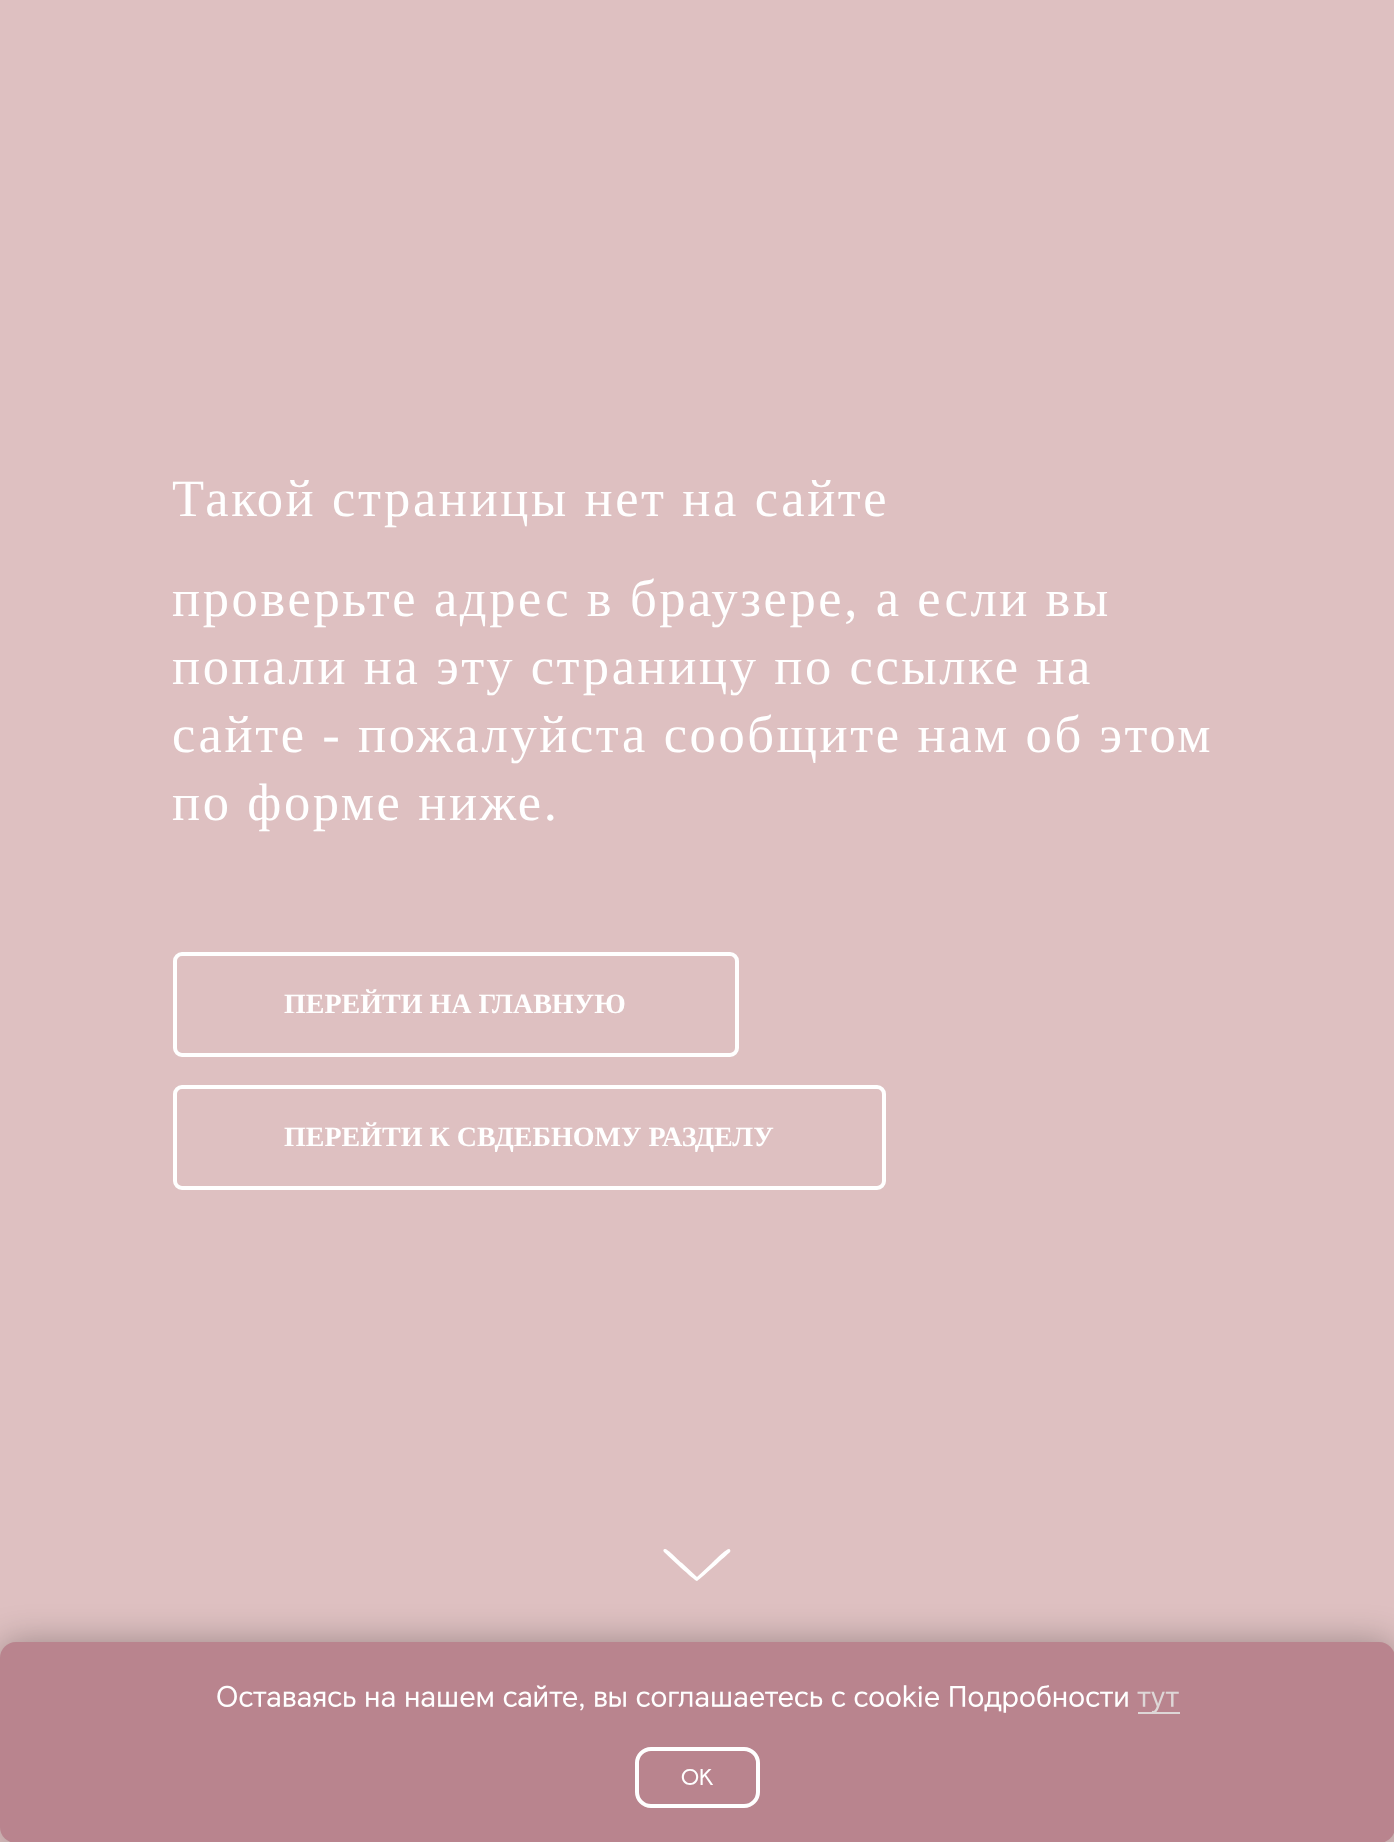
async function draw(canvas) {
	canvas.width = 1394;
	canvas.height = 1842;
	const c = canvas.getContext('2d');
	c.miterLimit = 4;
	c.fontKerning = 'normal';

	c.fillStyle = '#dec0c1';
	c.fillRect(0, 0, 1394, 1842);
	c.letterSpacing = '2.6px';
	c.font = '52.5px Liberation Serif';
	c.fillStyle = '#fff';
	for (const [text, x, y] of [
		['Такой страницы нет на сайте', 172, 516],
		['проверьте адрес в браузере, а если вы', 172, 616],
		['попали на эту страницу по ссылке на', 172, 684],
		['сайте - пожалуйста сообщите нам об этом', 172, 752],
		['по форме ниже.', 172, 820],
	]) {
		c.fillText(text, x, y);
	}
	c.beginPath();
	c.roundRect(175, 954, 562, 101, 7);
	c.strokeStyle = '#fff';
	c.lineWidth = 4;
	c.stroke();
	c.letterSpacing = '0px';
	c.font = 'bold 28px Liberation Serif';
	c.fillText('ПЕРЕЙТИ НА ГЛАВНУЮ', 284, 1013);
	c.beginPath();
	c.roundRect(175, 1087, 709, 101, 7);
	c.stroke();
	c.fillText('ПЕРЕЙТИ К СВДЕБНОМУ РАЗДЕЛУ', 284, 1146);
	c.beginPath();
	c.moveTo(697, 1581);
	c.bezierCurveTo(695, 1581, 667, 1555, 664, 1552);
	c.bezierCurveTo(663, 1551, 663, 1549, 665, 1549);
	c.bezierCurveTo(667, 1548, 679, 1561, 682, 1563);
	c.lineTo(697, 1577);
	c.lineTo(712, 1563);
	c.bezierCurveTo(714, 1561, 727, 1548, 729, 1549);
	c.bezierCurveTo(730, 1549, 731, 1551, 730, 1552);
	c.bezierCurveTo(728, 1554, 698, 1581, 697, 1581);
	c.closePath();
	c.fill();
	c.fillStyle = '#0000004d';
	c.filter = 'blur(17.5px)';
	c.beginPath();
	c.roundRect(0, 1642, 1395, 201, 16);
	c.fill();
	c.filter = 'none';
	c.fillStyle = '#b9848e';
	c.beginPath();
	c.roundRect(0, 1642, 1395, 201, 16);
	c.fill();
	c.font = '28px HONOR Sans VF';
	c.fillStyle = '#fff';
	c.fillText('Оставаясь на нашем сайте, вы соглашаетесь с cookie Подробности', 216, 1707);
	c.fillStyle = '#ded7d7';
	c.fillRect(1138, 1712, 42, 2);
	c.fillText('тут', 1137, 1707);
	c.beginPath();
	c.roundRect(637, 1749, 121, 57, 14);
	c.stroke();
	c.font = '23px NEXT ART';
	c.fillStyle = '#fff';
	c.fillText('OK', 681, 1785);
}

draw(document.querySelector('canvas'));
